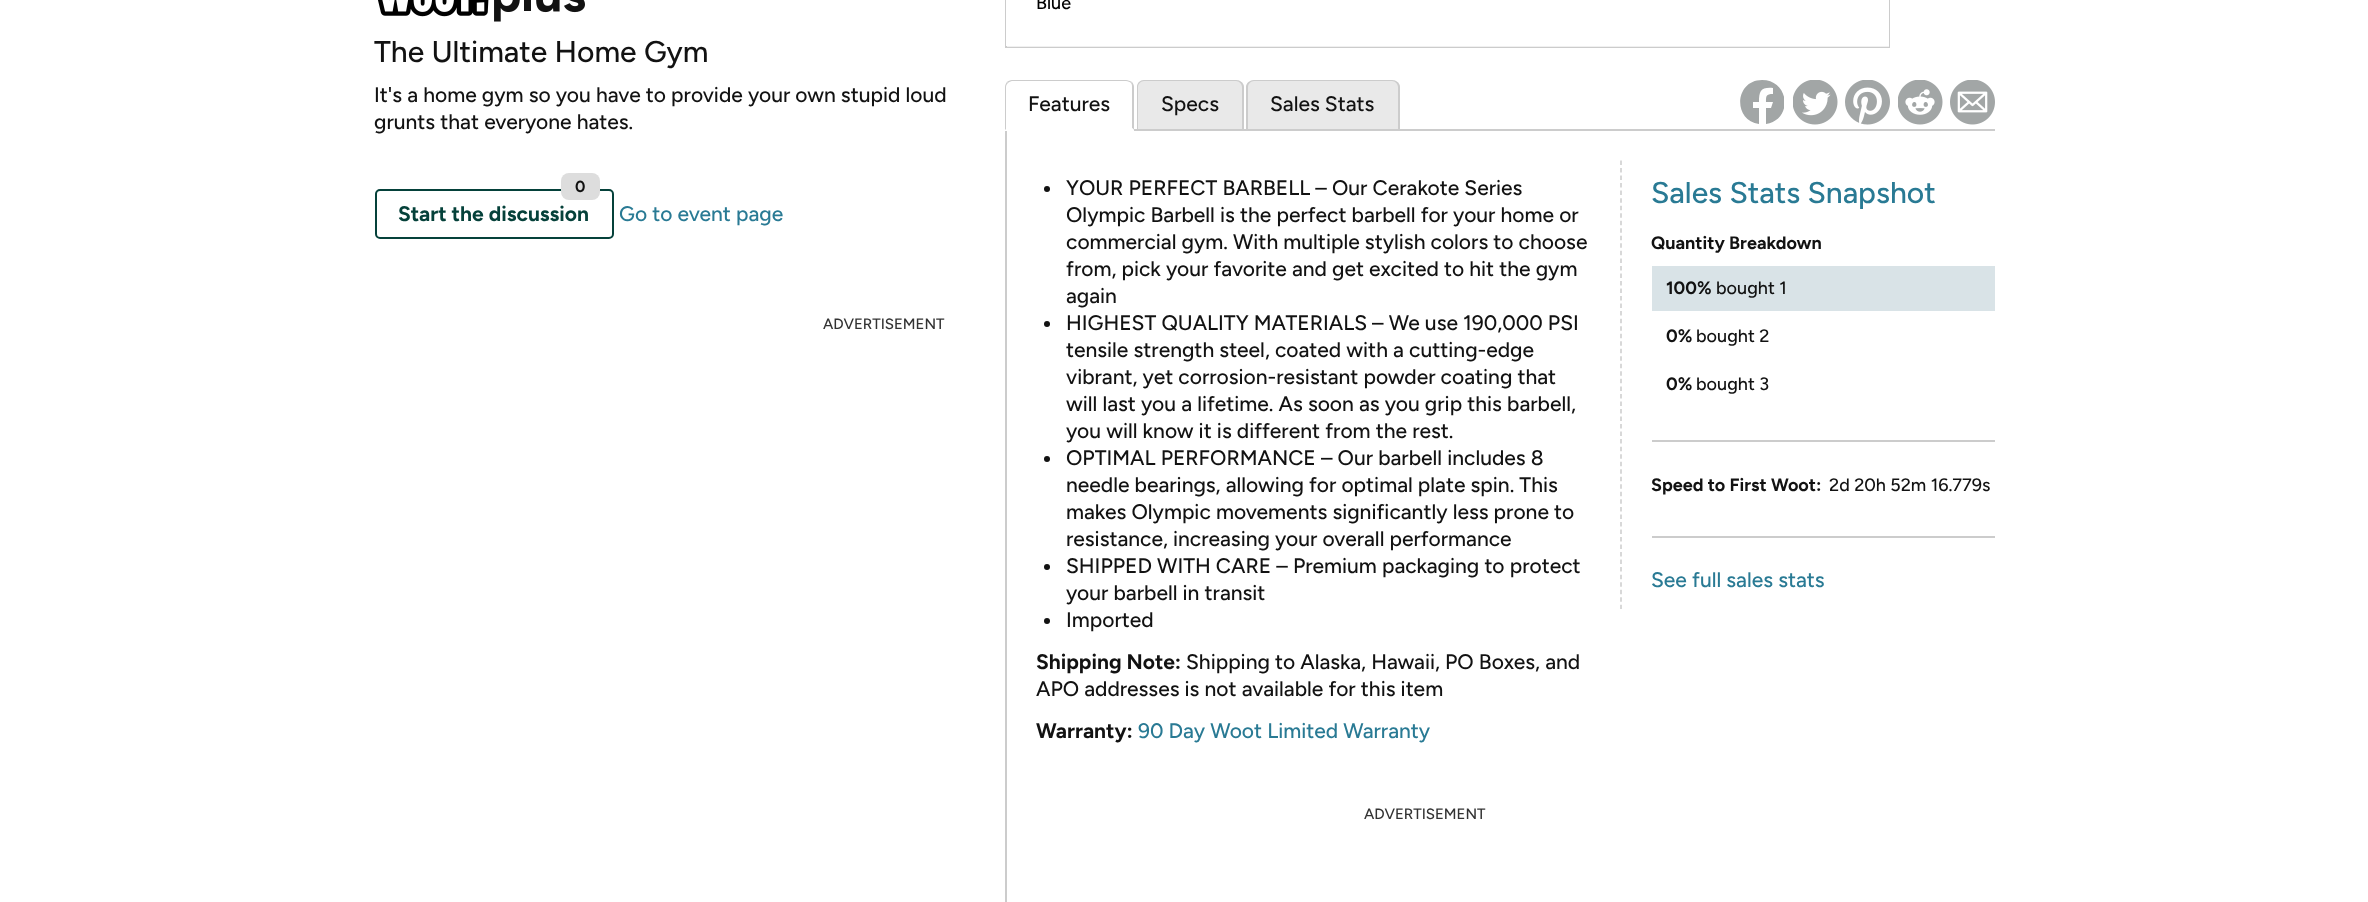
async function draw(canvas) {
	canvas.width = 2368;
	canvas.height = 902;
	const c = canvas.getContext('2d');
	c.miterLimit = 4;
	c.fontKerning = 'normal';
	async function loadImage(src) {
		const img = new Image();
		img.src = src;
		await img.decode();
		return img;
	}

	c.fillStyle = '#fff';
	c.fillRect(0, 0, 2368, 902);
	c.drawImage(await loadImage('img1.png'), 378, 0, 207, 22);
	c.font = '500 30px Figtree';
	c.fillStyle = '#121212';
	c.fillText('The Ultimate Home Gym', 374, 62);
	c.font = '500 21px Figtree';
	c.fillText('It\'s a home gym so you have to provide your own stupid loud', 374, 102);
	c.fillText('grunts that everyone hates.', 374, 129);
	c.beginPath();
	c.roundRect(376, 190, 237, 48, 4);
	c.strokeStyle = '#05413a';
	c.lineWidth = 2;
	c.stroke();
	c.fillStyle = '#ddd';
	c.beginPath();
	c.roundRect(561, 173, 39, 27, 8);
	c.fill();
	c.font = 'bold 16px Figtree';
	c.fillStyle = '#121212';
	c.fillText('0', 575, 192);
	c.font = 'bold 21px Figtree';
	c.fillStyle = '#05413a';
	c.fillText('Start the discussion', 398, 221);
	c.font = '500 21px Figtree';
	c.fillStyle = '#297a94';
	c.fillText('Go to event page', 619, 221);
	c.font = '500 15px Figtree';
	c.fillStyle = '#333';
	c.fillText('ADVERTISEMENT', 823, 329);
	c.strokeStyle = '#ccc';
	c.strokeRect(1006, -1, 883, 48);
	c.fillStyle = '#fff';
	c.fillRect(1006, 0, 883, 46);
	c.fillStyle = '#ffffffb3';
	c.fillRect(1007, 46, 882, 1);
	c.font = '500 18px Figtree';
	c.fillStyle = '#000';
	c.fillText('Blue', 1036, 9);
	c.save();
	c.beginPath();
	c.rect(1740, 80, 44, 45);
	c.clip();
	c.fillStyle = '#a2a6a6';
	c.beginPath();
	c.moveTo(1762, 80);
	c.bezierCurveTo(1735, 80, 1732, 120, 1759, 124);
	c.lineTo(1759, 108);
	c.lineTo(1753, 108);
	c.lineTo(1753, 102);
	c.lineTo(1759, 102);
	c.bezierCurveTo(1759, 91, 1761, 87, 1773, 88);
	c.lineTo(1773, 94);
	c.bezierCurveTo(1766, 94, 1766, 96, 1766, 102);
	c.lineTo(1773, 102);
	c.lineTo(1771, 108);
	c.lineTo(1766, 108);
	c.lineTo(1766, 124);
	c.bezierCurveTo(1793, 120, 1790, 80, 1762, 80);
	c.fill();
	c.restore();
	c.drawImage(await loadImage('img2.png'), 1793, 80, 45, 45);
	c.drawImage(await loadImage('img3.png'), 1845, 80, 45, 45);
	c.drawImage(await loadImage('img4.png'), 1898, 80, 45, 45);
	c.drawImage(await loadImage('img5.png'), 1950, 80, 45, 45);
	c.fillStyle = '#ccc';
	c.fillRect(1134, 129, 861, 2);
	c.beginPath();
	c.moveTo(1012, 80);
	c.bezierCurveTo(1010, 80, 1008, 81, 1007, 82);
	c.lineTo(1008, 83);
	c.bezierCurveTo(1009, 82, 1011, 81, 1012, 81);
	c.lineTo(1126, 81);
	c.bezierCurveTo(1128, 81, 1130, 82, 1131, 83);
	c.lineTo(1132, 82);
	c.bezierCurveTo(1130, 81, 1128, 80, 1126, 80);
	c.closePath();
	c.fill();
	c.beginPath();
	c.moveTo(1132, 82);
	c.bezierCurveTo(1133, 83, 1134, 85, 1134, 87);
	c.lineTo(1134, 130);
	c.lineTo(1132, 128);
	c.lineTo(1132, 87);
	c.bezierCurveTo(1132, 86, 1132, 84, 1131, 83);
	c.closePath();
	c.fill();
	c.fillStyle = '#fff';
	c.beginPath();
	c.moveTo(1134, 130);
	c.lineTo(1006, 130);
	c.lineTo(1006, 129);
	c.lineTo(1132, 129);
	c.lineTo(1132, 128);
	c.closePath();
	c.fill();
	c.fillStyle = '#ccc';
	c.beginPath();
	c.moveTo(1005, 87);
	c.lineTo(1005, 130);
	c.lineTo(1006, 129);
	c.lineTo(1006, 87);
	c.bezierCurveTo(1006, 85, 1007, 84, 1008, 83);
	c.lineTo(1007, 82);
	c.bezierCurveTo(1006, 83, 1005, 85, 1005, 87);
	c.closePath();
	c.fill();
	c.font = '500 21px Figtree';
	c.fillStyle = '#121212';
	c.fillText('Features', 1028, 111);
	c.fillStyle = '#e9e9e9';
	c.beginPath();
	c.roundRect(1137, 80, 107, 49, [8, 8, 0, 0]);
	c.fill();
	c.fillStyle = '#ccc';
	c.beginPath();
	c.moveTo(1144, 80);
	c.lineTo(1236, 80);
	c.bezierCurveTo(1240, 80, 1244, 83, 1244, 87);
	c.lineTo(1244, 129);
	c.lineTo(1137, 129);
	c.lineTo(1137, 87);
	c.bezierCurveTo(1137, 83, 1140, 80, 1144, 80);
	c.closePath();
	c.moveTo(1144, 81);
	c.lineTo(1236, 81);
	c.bezierCurveTo(1239, 81, 1242, 84, 1242, 87);
	c.lineTo(1242, 129);
	c.lineTo(1138, 129);
	c.lineTo(1138, 87);
	c.bezierCurveTo(1138, 84, 1141, 81, 1144, 81);
	c.closePath();
	c.fill('evenodd');
	c.fillStyle = '#121212';
	c.fillText('Specs', 1161, 111);
	c.fillStyle = '#e9e9e9';
	c.beginPath();
	c.roundRect(1247, 80, 153, 49, [8, 8, 0, 0]);
	c.fill();
	c.fillStyle = '#ccc';
	c.beginPath();
	c.moveTo(1254, 80);
	c.lineTo(1392, 80);
	c.bezierCurveTo(1396, 80, 1400, 83, 1400, 87);
	c.lineTo(1400, 129);
	c.lineTo(1246, 129);
	c.lineTo(1246, 87);
	c.bezierCurveTo(1246, 83, 1250, 80, 1254, 80);
	c.closePath();
	c.moveTo(1254, 81);
	c.lineTo(1392, 81);
	c.bezierCurveTo(1395, 81, 1398, 84, 1398, 87);
	c.lineTo(1398, 129);
	c.lineTo(1248, 129);
	c.lineTo(1248, 87);
	c.bezierCurveTo(1248, 84, 1251, 81, 1254, 81);
	c.closePath();
	c.fill('evenodd');
	c.fillStyle = '#121212';
	c.fillText('Sales Stats', 1270, 111);
	c.fillStyle = '#ccc';
	c.fillRect(1005, 131, 2, 771);
	c.fillStyle = '#121212';
	c.beginPath();
	c.arc(1047, 189, 3, 0, 2 * Math.PI);
	c.fill();
	for (const [text, x, y] of [
		['YOUR PERFECT BARBELL – Our Cerakote Series', 1066, 195],
		['Olympic Barbell is the perfect barbell for your home or', 1066, 222],
		['commercial gym. With multiple stylish colors to choose', 1066, 249],
		['from, pick your favorite and get excited to hit the gym', 1066, 276],
		['again', 1066, 303],
	]) {
		c.fillText(text, x, y);
	}
	c.beginPath();
	c.arc(1047, 324, 3, 0, 2 * Math.PI);
	c.fill();
	for (const [text, x, y] of [
		['HIGHEST QUALITY MATERIALS – We use 190,000 PSI', 1066, 330],
		['tensile strength steel, coated with a cutting-edge', 1066, 357],
		['vibrant, yet corrosion-resistant powder coating that', 1066, 384],
		['will last you a lifetime. As soon as you grip this barbell,', 1066, 411],
		['you will know it is different from the rest.', 1066, 438],
	]) {
		c.fillText(text, x, y);
	}
	c.beginPath();
	c.arc(1047, 459, 3, 0, 2 * Math.PI);
	c.fill();
	for (const [text, x, y] of [
		['OPTIMAL PERFORMANCE – Our barbell includes 8', 1066, 465],
		['needle bearings, allowing for optimal plate spin. This', 1066, 492],
		['makes Olympic movements significantly less prone to', 1066, 519],
		['resistance, increasing your overall performance', 1066, 546],
	]) {
		c.fillText(text, x, y);
	}
	c.beginPath();
	c.arc(1047, 567, 3, 0, 2 * Math.PI);
	c.fill();
	c.fillText('SHIPPED WITH CARE – Premium packaging to protect', 1066, 573);
	c.fillText('your barbell in transit', 1066, 600);
	c.beginPath();
	c.arc(1047, 621, 3, 0, 2 * Math.PI);
	c.fill();
	c.fillText('Imported', 1066, 627);
	c.font = 'bold 21px Figtree';
	c.fillText('Shipping Note:', 1036, 669);
	c.font = '500 21px Figtree';
	c.fillText('Shipping to Alaska, Hawaii, PO Boxes, and', 1186, 669);
	c.fillText('APO addresses is not available for this item', 1036, 696);
	c.font = 'bold 21px Figtree';
	c.fillText('Warranty:', 1036, 738);
	c.font = '500 21px Figtree';
	c.fillStyle = '#297a94';
	c.fillText('90 Day Woot Limited Warranty', 1138, 738);
	c.beginPath();
	c.moveTo(1621, 160.5);
	c.lineTo(1621, 609);
	c.lineWidth = 1.5;
	c.setLineDash([4.5, 3.03]);
	c.stroke();
	c.font = '500 30px Figtree';
	c.fillText('Sales Stats Snapshot', 1651, 203);
	c.fillStyle = '#ccc';
	c.fillRect(1652, 440, 343, 2);
	c.font = 'bold 18px Figtree';
	c.fillStyle = '#121212';
	c.fillText('Quantity Breakdown', 1651, 249);
	c.fillStyle = '#d9e3e7';
	c.fillRect(1652, 266, 343, 45);
	c.fillStyle = '#121212';
	c.fillText('100%', 1666, 294);
	c.font = '500 18px Figtree';
	c.fillText('bought 1', 1716, 294);
	c.font = 'bold 18px Figtree';
	c.fillText('0%', 1666, 342);
	c.font = '500 18px Figtree';
	c.fillText('bought 2', 1696, 342);
	c.font = 'bold 18px Figtree';
	c.fillText('0%', 1666, 390);
	c.font = '500 18px Figtree';
	c.fillText('bought 3', 1696, 390);
	c.fillStyle = '#ccc';
	c.fillRect(1652, 536, 343, 2);
	c.font = 'bold 18px Figtree';
	c.fillStyle = '#121212';
	c.fillText('Speed to First Woot:', 1651, 491);
	c.font = '500 18px Figtree';
	c.fillText('2d 20h 52m 16.779s', 1829, 491);
	c.font = '500 21px Figtree';
	c.fillStyle = '#297a94';
	c.fillText('See full sales stats', 1651, 587);
	c.font = '500 15px Figtree';
	c.fillStyle = '#333';
	c.fillText('ADVERTISEMENT', 1364, 819);
}

draw(document.querySelector('canvas'));
